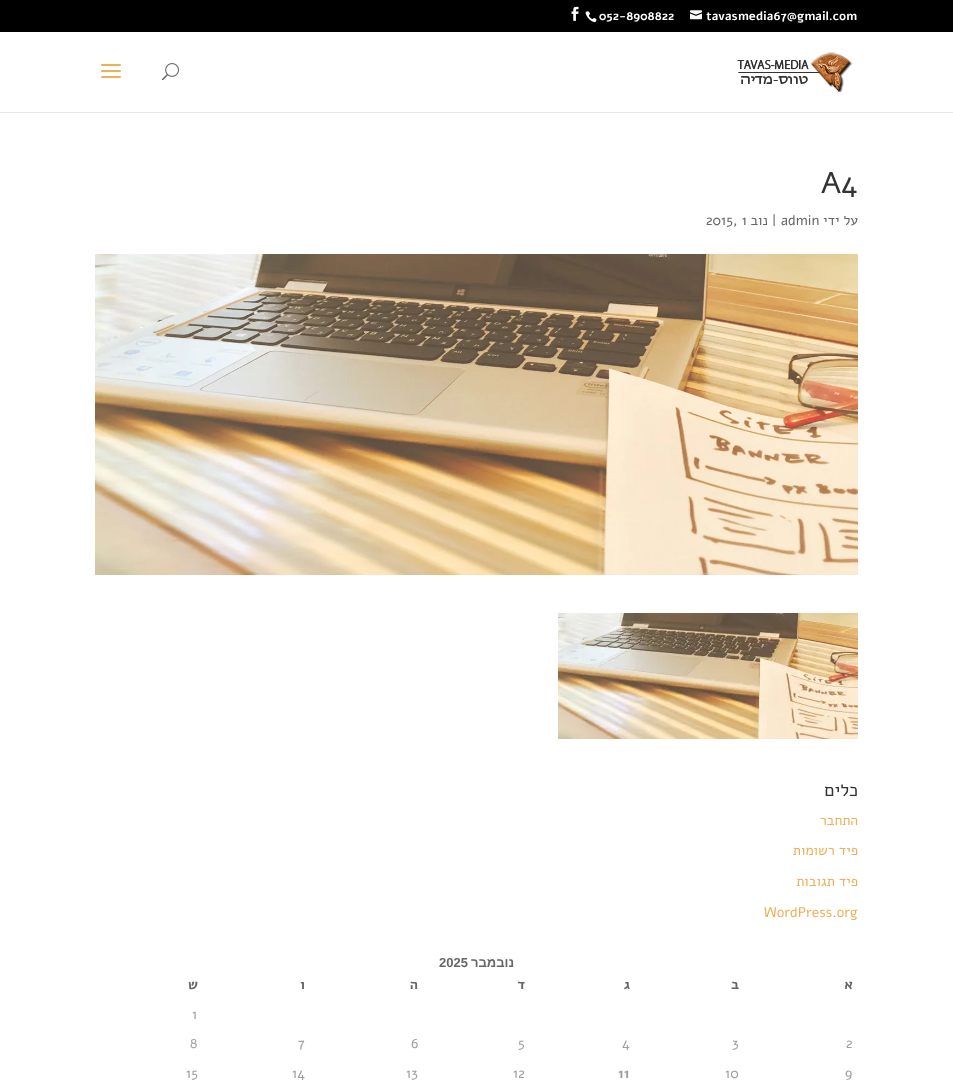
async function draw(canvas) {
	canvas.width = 953;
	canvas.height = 1082;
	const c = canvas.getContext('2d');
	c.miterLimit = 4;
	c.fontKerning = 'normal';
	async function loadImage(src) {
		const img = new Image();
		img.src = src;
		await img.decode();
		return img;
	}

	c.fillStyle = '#fff';
	c.fillRect(0, 0, 953, 1082);
	c.fillStyle = '#000';
	c.fillRect(0, 0, 953, 32);
	c.drawImage(await loadImage('img1.png'), 571, 6, 8, 15);
	c.drawImage(await loadImage('img2.png'), 585, 11, 12, 12);
	c.font = 'bold 12px Alef';
	c.fillStyle = '#fff';
	c.fillText('052-8908822', 599, 20);
	c.drawImage(await loadImage('img3.png'), 690, 10, 12, 10);
	c.fillText('tavasmedia67@gmail.com', 706, 20);
	c.fillStyle = '#e6e6e6';
	c.fillRect(0, 112, 953, 1);
	c.drawImage(await loadImage('img4.png'), 101, 64, 20, 14);
	c.drawImage(await loadImage('img5.png'), 162, 63, 17, 18);
	c.drawImage(await loadImage('img6.png'), 737, 52, 116, 40);
	c.font = '30px Alef';
	c.fillStyle = '#333';
	c.fillText('A4', 821, 193);
	c.font = '14px Alef';
	c.fillStyle = '#666';
	c.fillText('2015, 1', 706, 225);
	c.direction = 'rtl';
	c.fillText('נוב', 768, 225);
	c.direction = 'ltr';
	c.fillText('|', 772, 225);
	c.fillText('admin', 781, 225);
	c.direction = 'rtl';
	c.fillText('על ידי', 858, 225);
	c.drawImage(await loadImage('img7.png'), 95, 254, 763, 321);
	c.drawImage(await loadImage('img8.png'), 558, 613, 300, 126);
	c.font = '18px Alef';
	c.fillStyle = '#333';
	c.fillText('כלים', 858, 796);
	c.font = '14px Alef';
	c.fillStyle = '#edb059';
	for (const [text, x, y] of [
		['התחבר', 858, 825],
		['פיד רשומות', 858, 855],
		['פיד תגובות', 858, 886],
	]) {
		c.fillText(text, x, y);
	}
	c.direction = 'ltr';
	c.fillText('WordPress.org', 764, 917);
	c.font = 'bold 13px Liberation Sans';
	c.fillStyle = '#666';
	c.fillText('2025', 439, 967);
	c.direction = 'rtl';
	c.fillText('נובמבר', 514, 967);
	c.font = 'bold 14px Alef';
	for (const [text, x, y] of [
		['ש', 198, 989],
		['ו', 305, 989],
		['ה', 418, 989],
		['ד', 525, 989],
		['ג', 630, 989],
		['ב', 739, 989],
		['א', 853, 989],
	]) {
		c.fillText(text, x, y);
	}
	c.direction = 'ltr';
	c.font = '14px Alef';
	c.fillStyle = '#9f9f9f';
	for (const [text, x, y] of [
		['1', 192, 1019],
		['8', 190, 1048],
		['7', 298, 1048],
		['6', 411, 1048],
		['5', 518, 1048],
		['4', 622, 1048],
		['3', 732, 1048],
		['2', 846, 1048],
		['15', 186, 1078],
		['14', 292, 1078],
		['13', 406, 1078],
		['12', 513, 1078],
	]) {
		c.fillText(text, x, y);
	}
	c.font = 'bold 14px Alef';
	c.fillText('11', 618, 1078);
	c.font = '14px Alef';
	c.fillText('10', 725, 1078);
	c.fillText('9', 845, 1078);
}

draw(document.querySelector('canvas'));
